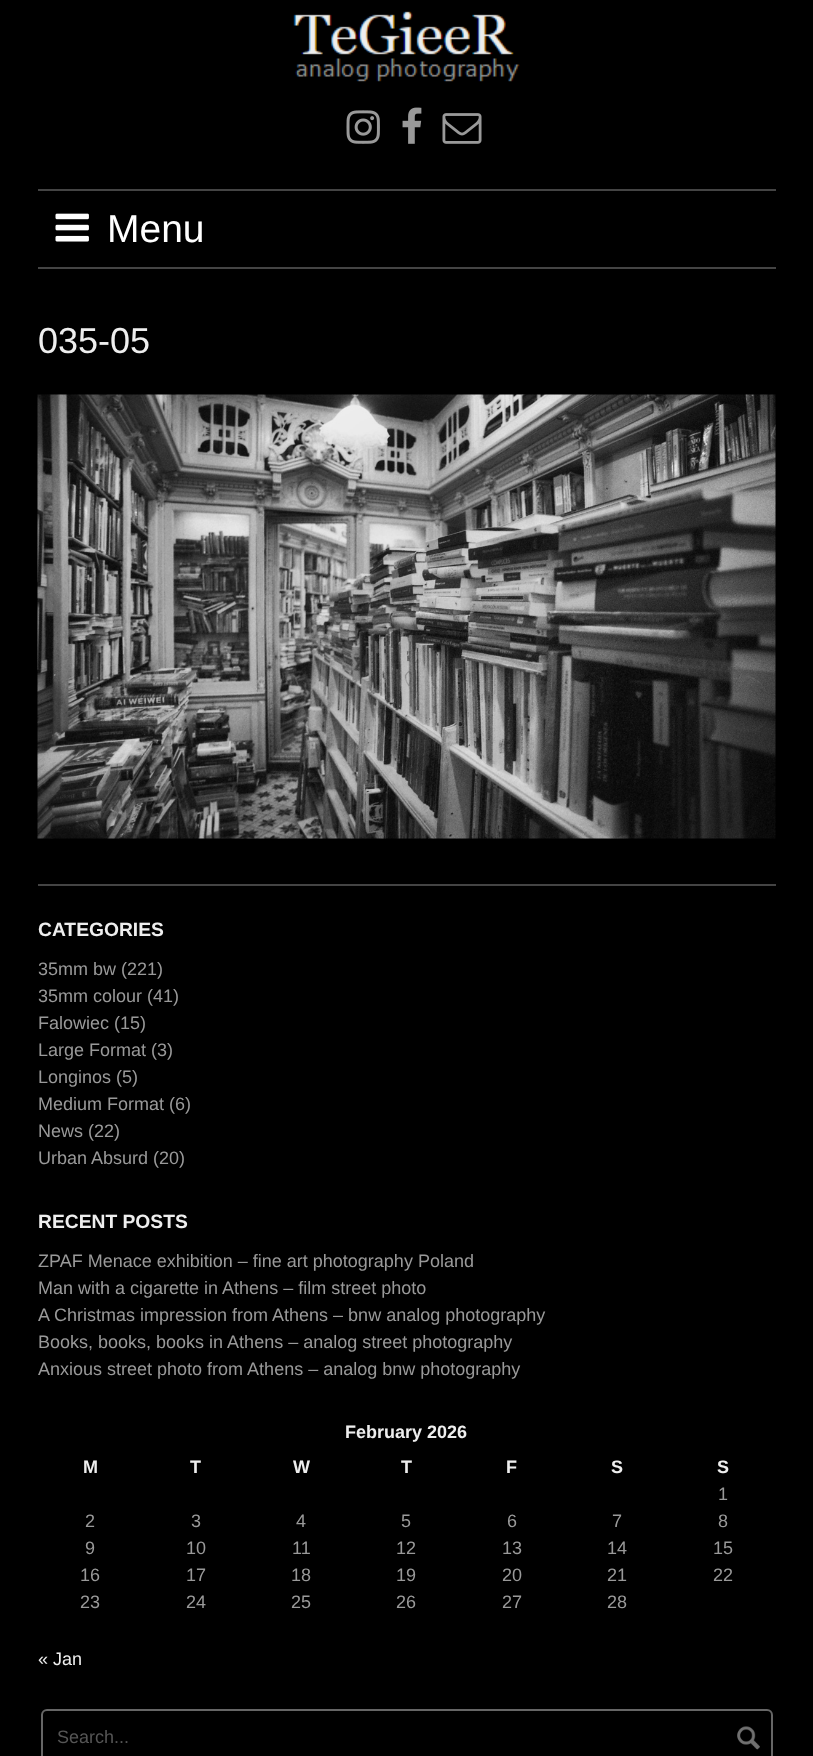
async function draw(canvas) {
	canvas.width = 813;
	canvas.height = 1756;
	const c = canvas.getContext('2d');
	c.miterLimit = 4;
	c.fontKerning = 'normal';
	async function loadImage(src) {
		const img = new Image();
		img.src = src;
		await img.decode();
		return img;
	}

	c.fillStyle = '#000';
	c.fillRect(0, 0, 813, 1756);
	c.drawImage(await loadImage('img1.png'), 293, 11, 227, 71);
	c.drawImage(await loadImage('img2.png'), 346, 110, 34, 34);
	c.drawImage(await loadImage('img3.png'), 402, 107, 20, 37);
	c.drawImage(await loadImage('img4.png'), 442, 113, 40, 31);
	c.fillStyle = '#444';
	c.fillRect(38, 189, 738, 2);
	c.fillRect(38, 267, 738, 2);
	c.drawImage(await loadImage('img5.png'), 55, 213, 34, 29);
	c.font = '39px Liberation Sans';
	c.fillStyle = '#fff';
	c.fillText('Menu', 107, 242);
	c.font = '36px Liberation Sans';
	c.fillStyle = '#eee';
	c.fillText('035-05', 38, 353);
	c.drawImage(await loadImage('img6.png'), 37, 394, 739, 445);
	c.fillStyle = '#444';
	c.fillRect(38, 884, 738, 2);
	c.font = 'bold 19.25px Liberation Sans';
	c.fillStyle = '#eee';
	c.fillText('CATEGORIES', 38, 936);
	c.font = '18px Liberation Sans';
	c.fillStyle = '#999';
	for (const [text, x, y] of [
		['35mm bw (221)', 38, 975],
		['35mm colour (41)', 38, 1002],
		['Falowiec (15)', 38, 1029],
		['Large Format (3)', 38, 1056],
		['Longinos (5)', 38, 1083],
		['Medium Format (6)', 38, 1110],
		['News (22)', 38, 1137],
		['Urban Absurd (20)', 38, 1164],
	]) {
		c.fillText(text, x, y);
	}
	c.font = 'bold 19.25px Liberation Sans';
	c.fillStyle = '#eee';
	c.fillText('RECENT POSTS', 38, 1228);
	c.font = '18px Liberation Sans';
	c.fillStyle = '#999';
	for (const [text, x, y] of [
		['ZPAF Menace exhibition – fine art photography Poland', 38, 1267],
		['Man with a cigarette in Athens – film street photo', 38, 1294],
		['A Christmas impression from Athens – bnw analog photography', 38, 1321],
		['Books, books, books in Athens – analog street photography', 38, 1348],
		['Anxious street photo from Athens – analog bnw photography', 38, 1375],
	]) {
		c.fillText(text, x, y);
	}
	c.font = 'bold 18px Liberation Sans';
	c.fillStyle = '#eee';
	for (const [text, x, y] of [
		['February 2026', 345, 1438],
		['M', 83, 1473],
		['T', 190, 1473],
		['W', 293, 1473],
		['T', 401, 1473],
		['F', 506, 1473],
		['S', 611, 1473],
		['S', 717, 1473],
	]) {
		c.fillText(text, x, y);
	}
	c.font = '18px Liberation Sans';
	c.fillStyle = '#999';
	for (const [text, x, y] of [
		['1', 718, 1500],
		['2', 85, 1527],
		['3', 191, 1527],
		['4', 296, 1527],
		['5', 401, 1527],
		['6', 507, 1527],
		['7', 612, 1527],
		['8', 718, 1527],
		['9', 85, 1554],
		['10', 186, 1554],
		['11', 292, 1554],
		['12', 396, 1554],
		['13', 502, 1554],
		['14', 607, 1554],
		['15', 713, 1554],
		['16', 80, 1581],
		['17', 186, 1581],
		['18', 291, 1581],
		['19', 396, 1581],
		['20', 502, 1581],
		['21', 607, 1581],
		['22', 713, 1581],
		['23', 80, 1608],
		['24', 186, 1608],
		['25', 291, 1608],
		['26', 396, 1608],
		['27', 502, 1608],
		['28', 607, 1608],
	]) {
		c.fillText(text, x, y);
	}
	c.fillStyle = '#eee';
	c.fillText('« Jan', 38, 1665);
	c.beginPath();
	c.roundRect(42, 1710, 730, 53, 5);
	c.strokeStyle = '#666';
	c.lineWidth = 2;
	c.stroke();
	c.fillStyle = '#555';
	c.fillText('Search...', 57, 1743);
	c.drawImage(await loadImage('img7.png'), 737, 1726, 23, 24);
}

draw(document.querySelector('canvas'));
